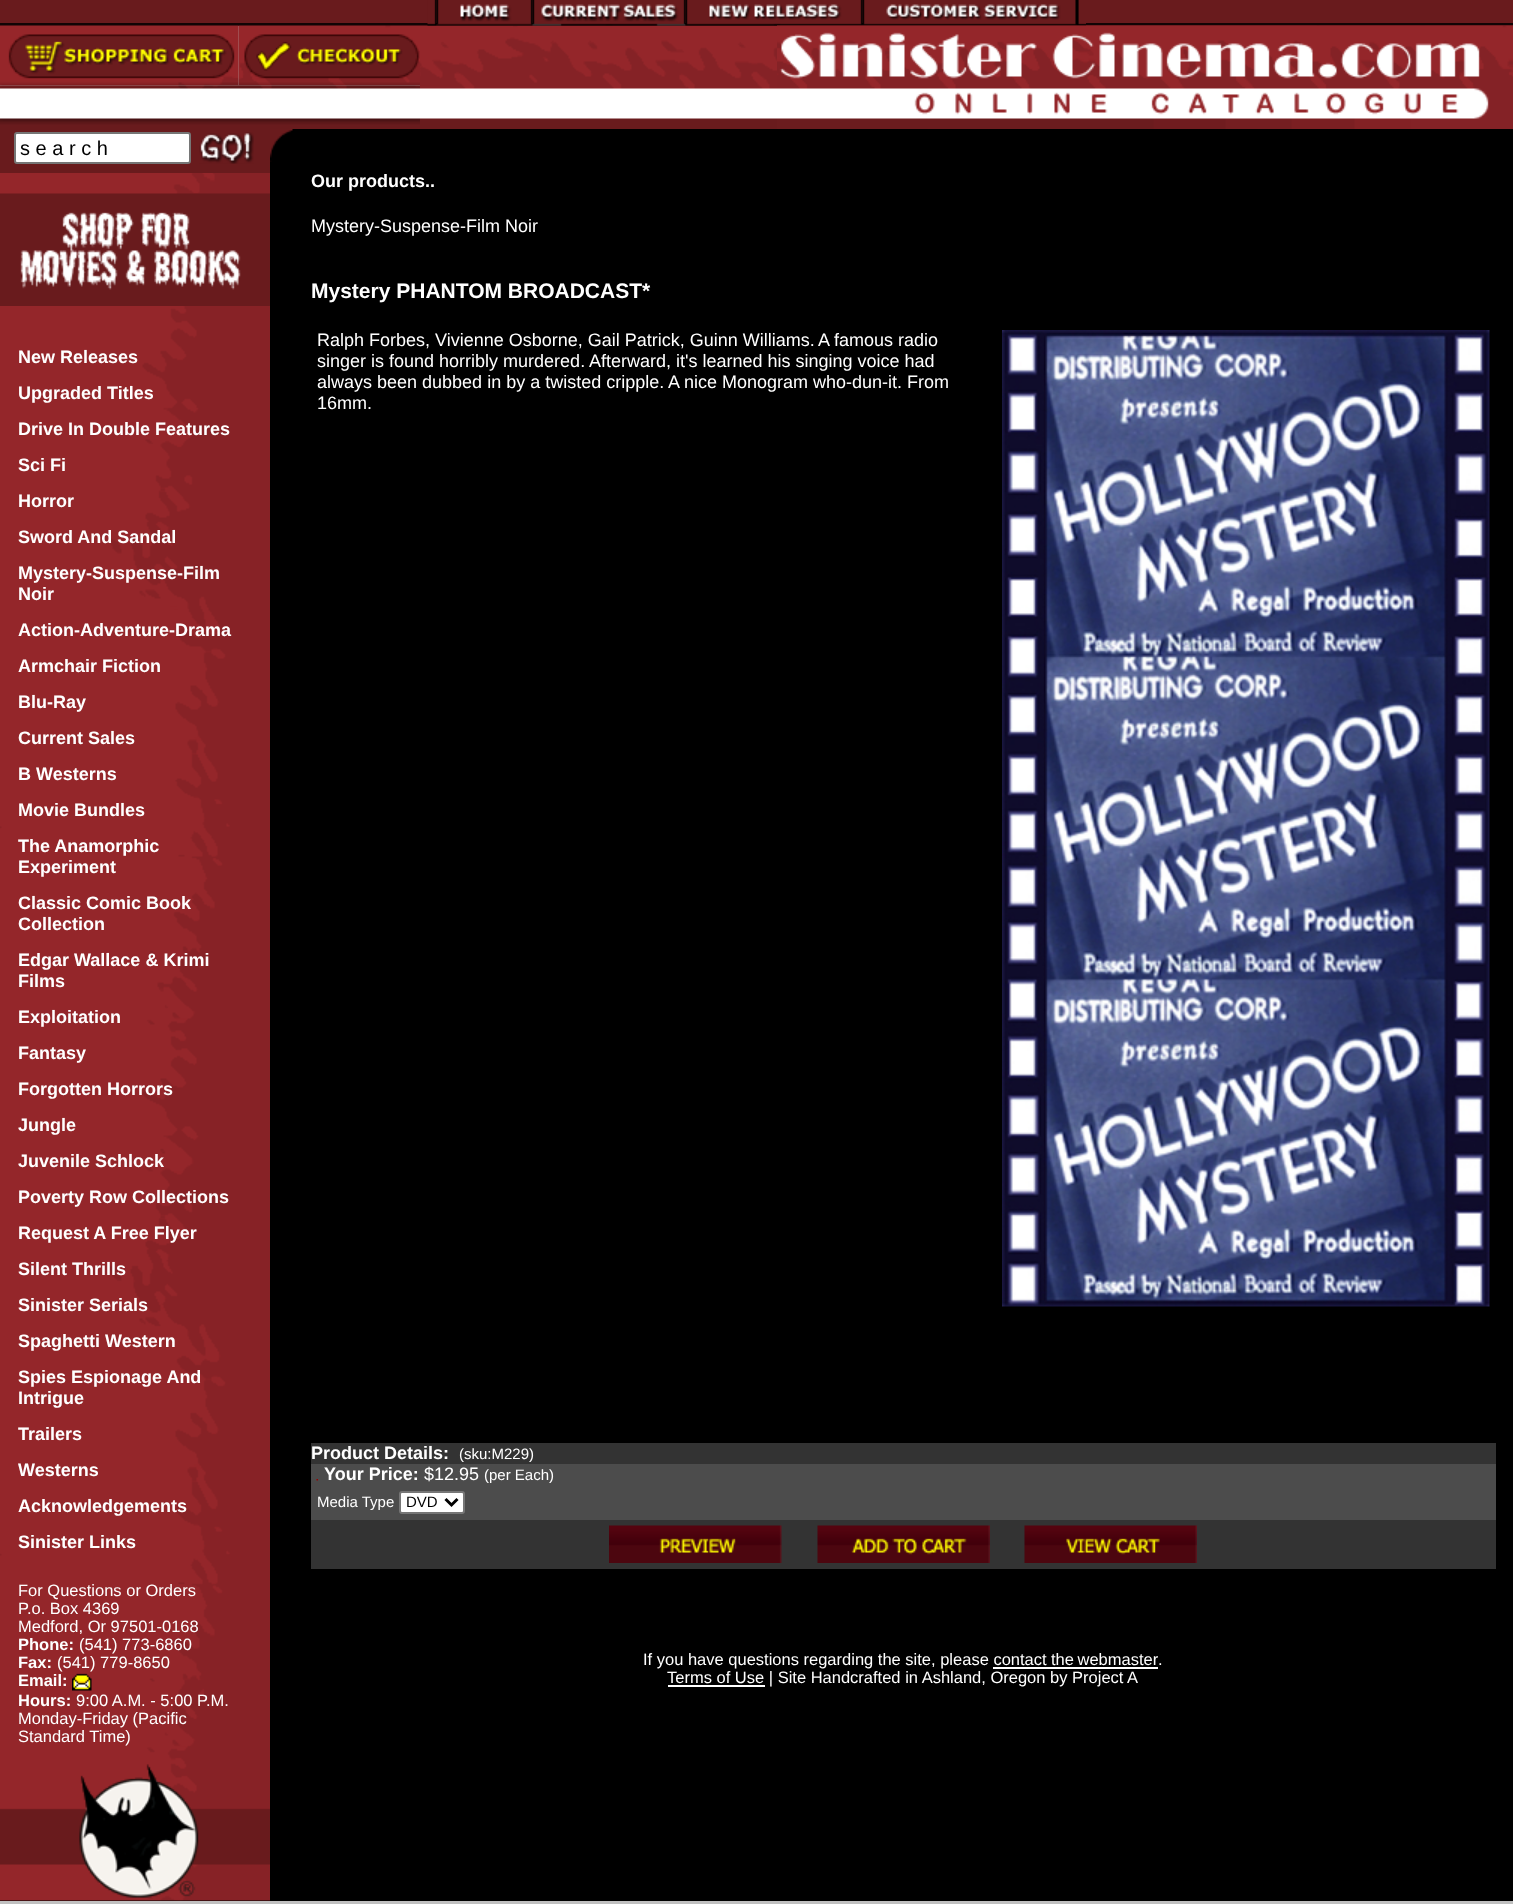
async function draw(canvas) {
	canvas.width = 1513;
	canvas.height = 1904;
	const c = canvas.getContext('2d');
	c.miterLimit = 4;
	c.fontKerning = 'normal';
	async function loadImage(src) {
		const img = new Image();
		img.src = src;
		await img.decode();
		return img;
	}

	c.fillStyle = '#c0c0c0';
	c.fillRect(0, 0, 1513, 1904);
	c.fillStyle = '#691b1d';
	c.fillRect(0, 0, 1513, 23);
	c.fillStyle = '#110405';
	c.fillRect(0, 23, 1513, 3);
	c.drawImage(await loadImage('img10.png'), 420, 25, 1093, 104);
	c.drawImage(await loadImage('img1.png'), 427, 0, 10, 26);
	c.drawImage(await loadImage('img2.png'), 436, 0, 97, 26);
	c.drawImage(await loadImage('img3.png'), 532, 0, 154, 26);
	c.drawImage(await loadImage('img4.png'), 685, 0, 178, 26);
	c.drawImage(await loadImage('img5.png'), 862, 0, 215, 26);
	c.drawImage(await loadImage('img6.png'), 1077, 0, 9, 26);
	c.drawImage(await loadImage('img7.png'), 0, 25, 239, 61);
	c.drawImage(await loadImage('img8.png'), 238, 25, 182, 61);
	c.drawImage(await loadImage('img9.png'), 0, 85, 420, 44);
	c.drawImage(await loadImage('img11.png'), 777, 25, 736, 104);
	c.fillStyle = '#000';
	c.fillRect(0, 129, 1513, 1772);
	c.drawImage(await loadImage('img12.png'), 0, 173, 270, 1728);
	c.fillStyle = '#691b1d';
	c.fillRect(0, 129, 270, 44);
	c.fillStyle = '#fff';
	c.beginPath();
	c.roundRect(15, 133, 175, 30, 2);
	c.fill();
	c.strokeStyle = '#767676';
	c.lineWidth = 2;
	c.stroke();
	c.font = '20px Liberation Sans';
	c.fillStyle = '#000';
	c.fillText('s e a r c h', 20, 155);
	c.drawImage(await loadImage('img13.png'), 199, 132, 55, 32);
	c.drawImage(await loadImage('img14.png'), 0, 193, 270, 113);
	c.font = 'bold 18px Liberation Sans';
	c.fillStyle = '#fff';
	for (const [text, x, y] of [
		['New Releases', 18, 363],
		['Upgraded Titles', 18, 399],
		['Drive In Double Features', 18, 435],
		['Sci Fi', 18, 471],
		['Horror', 18, 507],
		['Sword And Sandal', 18, 543],
		['Mystery-Suspense-Film', 18, 579],
		['Noir', 18, 600],
		['Action-Adventure-Drama', 18, 636],
		['Armchair Fiction', 18, 672],
		['Blu-Ray', 18, 708],
		['Current Sales', 18, 744],
		['B Westerns', 18, 780],
		['Movie Bundles', 18, 816],
		['The Anamorphic', 18, 852],
		['Experiment', 18, 873],
		['Classic Comic Book', 18, 909],
		['Collection', 18, 930],
		['Edgar Wallace & Krimi', 18, 966],
		['Films', 18, 987],
		['Exploitation', 18, 1023],
		['Fantasy', 18, 1059],
		['Forgotten Horrors', 18, 1095],
		['Jungle', 18, 1131],
		['Juvenile Schlock', 18, 1167],
		['Poverty Row Collections', 18, 1203],
		['Request A Free Flyer', 18, 1239],
		['Silent Thrills', 18, 1275],
		['Sinister Serials', 18, 1311],
		['Spaghetti Western', 18, 1347],
		['Spies Espionage And', 18, 1383],
		['Intrigue', 18, 1404],
		['Trailers', 18, 1440],
		['Westerns', 18, 1476],
		['Acknowledgements', 18, 1512],
		['Sinister Links', 18, 1548],
	]) {
		c.fillText(text, x, y);
	}
	c.font = '16.5px Liberation Sans';
	for (const [text, x, y] of [
		['For Questions or Orders', 18, 1596],
		['P.o. Box 4369', 18, 1614],
		['Medford, Or 97501-0168', 18, 1632],
	]) {
		c.fillText(text, x, y);
	}
	c.font = 'bold 16.5px Liberation Sans';
	c.fillText('Phone:', 18, 1650);
	c.font = '16.5px Liberation Sans';
	c.fillText('(541) 773-6860', 79, 1650);
	c.font = 'bold 16.5px Liberation Sans';
	c.fillText('Fax:', 18, 1668);
	c.font = '16.5px Liberation Sans';
	c.fillText('(541) 779-8650', 57, 1668);
	c.font = 'bold 16.5px Liberation Sans';
	c.fillText('Email:', 18, 1686);
	c.drawImage(await loadImage('img15.png'), 72, 1673, 20, 18);
	c.fillText('Hours:', 18, 1706);
	c.font = '16.5px Liberation Sans';
	for (const [text, x, y] of [
		['9:00 A.M. - 5:00 P.M.', 76, 1706],
		['Monday-Friday (Pacific', 18, 1724],
		['Standard Time)', 18, 1742],
	]) {
		c.fillText(text, x, y);
	}
	c.drawImage(await loadImage('img16.png'), 0, 1764, 270, 134);
	c.drawImage(await loadImage('img17.png'), 270, 129, 23, 33);
	c.font = 'bold 18px Liberation Sans';
	c.fillText('Our products..', 311, 187);
	c.font = '18px Liberation Sans';
	c.fillText('Mystery-Suspense-Film Noir', 311, 232);
	c.font = 'bold 21px Liberation Sans';
	c.fillText('Mystery PHANTOM BROADCAST*', 311, 298);
	c.font = '18px Liberation Sans';
	for (const [text, x, y] of [
		['Ralph Forbes, Vivienne Osborne, Gail Patrick, Guinn Williams.', 317, 346],
		['A famous radio', 818, 346],
		['singer is found horribly murdered.', 317, 367],
		['Afterward, it\'s learned his singing voice had', 589, 367],
		['always been dubbed in by a twisted cripple.', 317, 388],
		['A nice Monogram who-dun-it. From', 668, 388],
		['16mm.', 317, 409],
	]) {
		c.fillText(text, x, y);
	}
	c.drawImage(await loadImage('img18.png'), 1002, 330, 488, 977);
	c.fillStyle = '#333';
	c.fillRect(311, 1443, 1185, 21);
	c.font = 'bold 18px Liberation Sans';
	c.fillStyle = '#fff';
	c.fillText('Product Details:', 311, 1459);
	c.font = '15px Liberation Sans';
	c.fillText('(sku:M229)', 459, 1459);
	c.fillStyle = '#4c4c4c';
	c.fillRect(311, 1464, 1185, 56);
	c.drawImage(await loadImage('img19.png'), 316, 1479, 2, 2);
	c.font = 'bold 18px Liberation Sans';
	c.fillStyle = '#fff';
	c.fillText('Your Price:', 324, 1480);
	c.font = '18px Liberation Sans';
	c.fillText('$12.95', 424, 1480);
	c.font = '15px Liberation Sans';
	c.fillText('(per Each)', 484, 1480);
	c.fillText('Media Type', 317, 1507);
	c.beginPath();
	c.roundRect(400, 1492, 64, 21, 2);
	c.fill();
	c.stroke();
	c.beginPath();
	c.moveTo(445.5, 1499);
	c.lineTo(451.5, 1505);
	c.lineTo(457.5, 1499);
	c.strokeStyle = '#000';
	c.lineWidth = 3;
	c.stroke();
	c.fillStyle = '#000';
	c.fillText('DVD', 406, 1507);
	c.fillStyle = '#333';
	c.fillRect(311, 1520, 1185, 49);
	c.drawImage(await loadImage('img20.png'), 609, 1525, 173, 38);
	c.drawImage(await loadImage('img21.png'), 817, 1525, 173, 38);
	c.drawImage(await loadImage('img22.png'), 1024, 1525, 173, 38);
	c.font = '16.5px Liberation Sans';
	c.fillStyle = '#fff';
	c.fillText('If you have questions regarding the site, please contact', 643, 1665);
	c.wordSpacing = '-1px';
	c.fillText('the webmaster', 1051, 1665);
	c.wordSpacing = '0px';
	c.fillText('.', 1158, 1665);
	c.fillRect(993, 1667, 165, 2);
	c.fillRect(668, 1685, 97, 2);
	c.fillText('Terms of Use | Site Handcrafted in Ashland, Oregon by Project A', 667, 1683);
}

draw(document.querySelector('canvas'));
